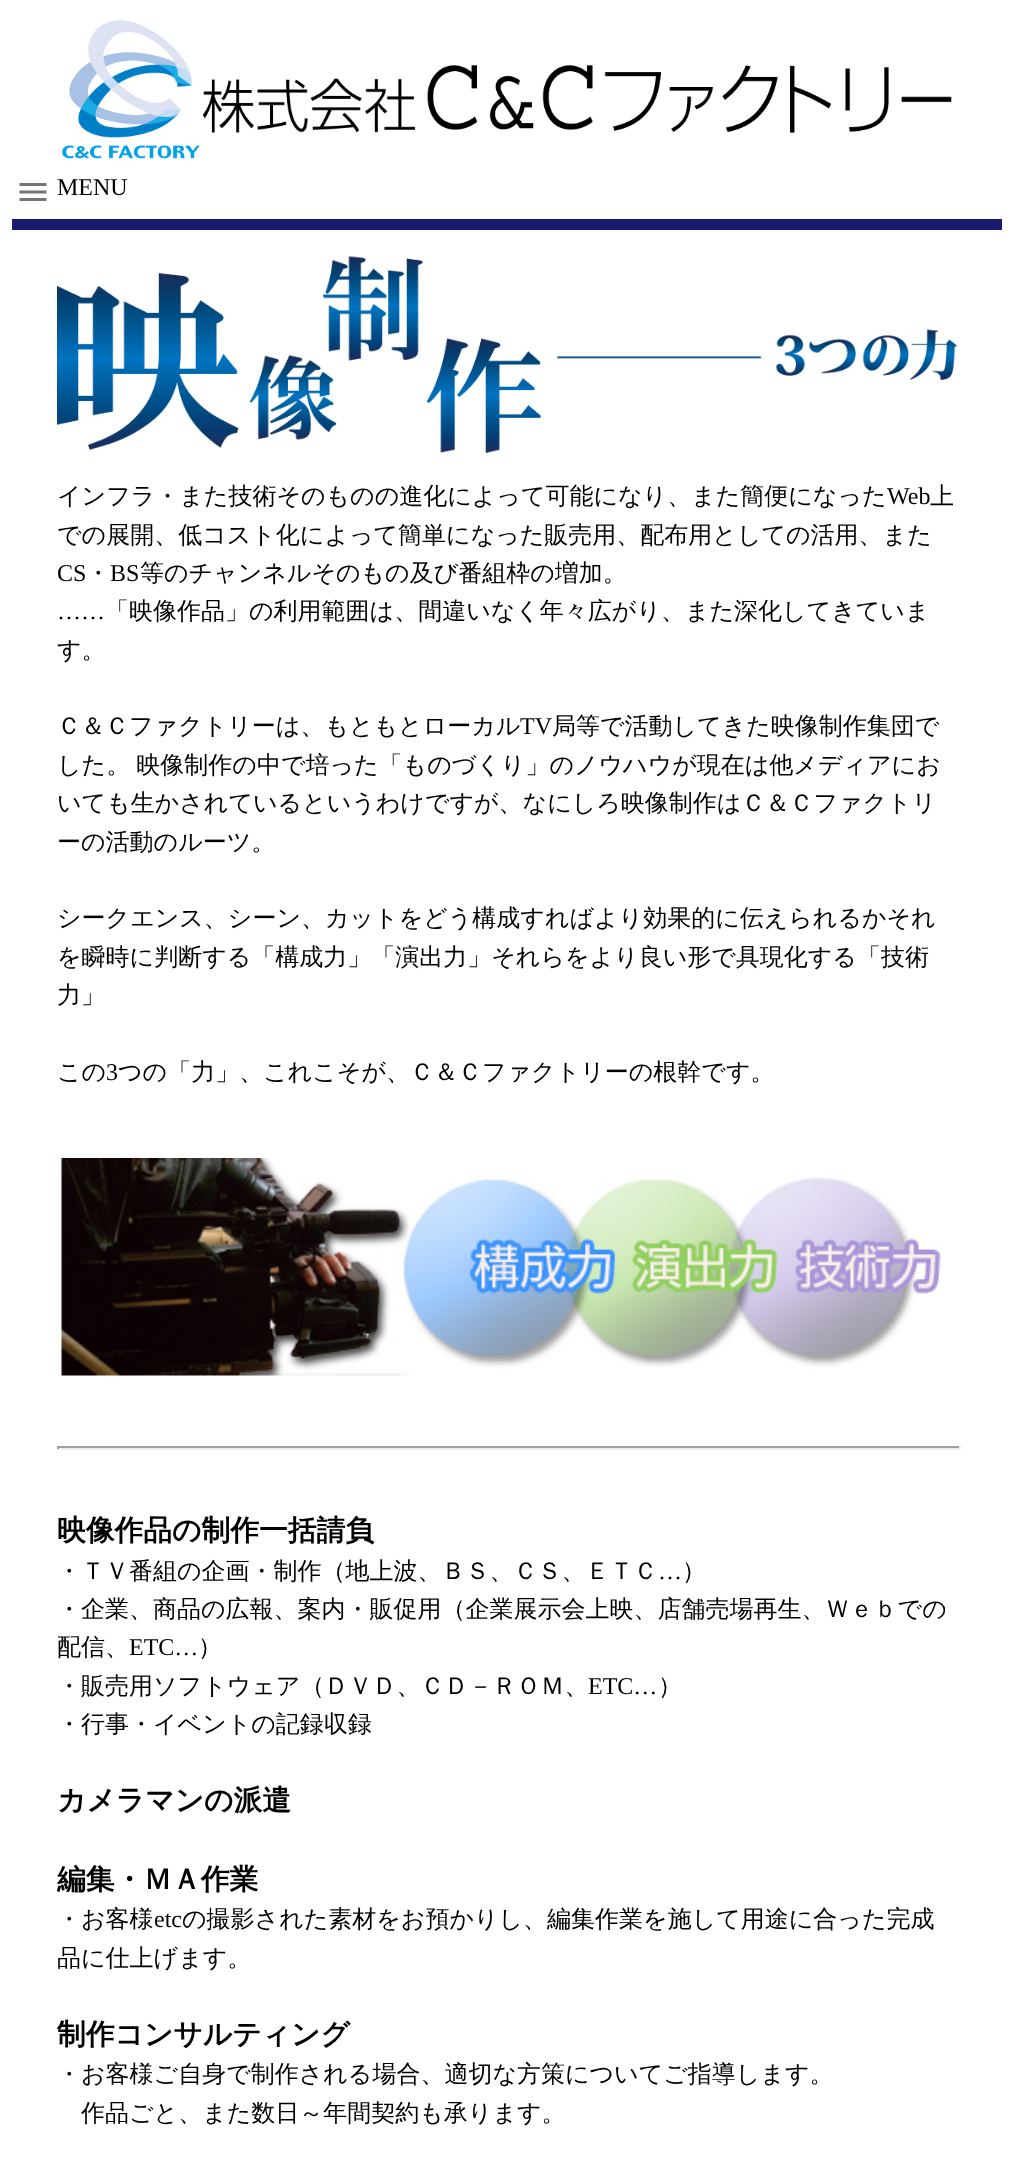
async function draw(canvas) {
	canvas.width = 1014;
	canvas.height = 2182;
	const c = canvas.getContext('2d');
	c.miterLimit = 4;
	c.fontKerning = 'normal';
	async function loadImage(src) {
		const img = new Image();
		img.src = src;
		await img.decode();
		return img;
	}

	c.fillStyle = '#fff';
	c.fillRect(0, 0, 1014, 2182);
	c.drawImage(await loadImage('img1.png'), 62, 20, 890, 139);
	c.drawImage(await loadImage('img2.png'), 19, 183, 28, 18);
	c.font = '24px Liberation Serif';
	c.fillStyle = '#000';
	c.fillText('MENU', 57, 195);
	c.fillStyle = '#191970';
	c.fillRect(12, 219, 990, 11);
	c.drawImage(await loadImage('img3.png'), 57, 256, 900, 197);
	c.font = '500 24px WenQuanYi Zen Hei';
	c.fillStyle = '#000';
	c.fillText('インフラ・また技術そのものの進化によって可能になり、また簡便になった', 57, 504);
	c.font = '24px Liberation Serif';
	c.fillText('Web', 887, 504);
	c.font = '500 24px WenQuanYi Zen Hei';
	c.fillText('上', 930, 504);
	c.fillText('での展開、低コスト化によって簡単になった販売用、配布用としての活用、また', 57, 543);
	c.font = '24px Liberation Serif';
	c.fillText('CS', 57, 581);
	c.font = '500 24px WenQuanYi Zen Hei';
	c.fillText('・', 86, 581);
	c.font = '24px Liberation Serif';
	c.fillText('BS', 110, 581);
	c.font = '500 24px WenQuanYi Zen Hei';
	c.fillText('等のチャンネルそのもの及び番組枠の増加。', 140, 581);
	c.font = '24px Liberation Serif';
	c.fillText('……', 57, 619);
	c.font = '500 24px WenQuanYi Zen Hei';
	for (const [text, x, y] of [
		['「映像作品」の利用範囲は、間違いなく年々広がり、また深化してきていま', 105, 619],
		['す。', 57, 658],
		['Ｃ＆Ｃファクトリーは、もともとローカル', 57, 734],
	]) {
		c.fillText(text, x, y);
	}
	c.font = '24px Liberation Serif';
	c.fillText('TV', 520, 734);
	c.font = '500 24px WenQuanYi Zen Hei';
	c.fillText('局等で活動してきた映像制作集団で', 552, 734);
	c.wordSpacing = '-1px';
	c.fillText('した。 映像制作の中で培った「ものづくり」のノウハウが現在は他メディアにお', 57, 773);
	c.wordSpacing = '0px';
	for (const [text, x, y] of [
		['いても生かされているというわけですが、なにしろ映像制作はＣ＆Ｃファクトリ', 57, 811],
		['ーの活動のルーツ。', 57, 850],
		['シークエンス、シーン、カットをどう構成すればより効果的に伝えられるかそれ', 57, 926],
		['を瞬時に判断する「構成力」「演出力」それらをより良い形で具現化する「技術', 57, 965],
		['力」', 57, 1003],
		['この', 57, 1080],
	]) {
		c.fillText(text, x, y);
	}
	c.font = '24px Liberation Serif';
	c.fillText('3', 106, 1080);
	c.font = '500 24px WenQuanYi Zen Hei';
	c.fillText('つの「力」、これこそが、Ｃ＆Ｃファクトリーの根幹です。', 118, 1080);
	c.drawImage(await loadImage('img4.png'), 61, 1158, 881, 218);
	for (const [x, y, w, h, color] of [
		[57, 1446, 903, 2, '#9f9f9f'],
		[959, 1446, 2, 3, '#eee'],
		[57, 1448, 903, 2, '#eee'],
		[57, 1446, 2, 3, '#9f9f9f'],
	]) {
		c.fillStyle = color;
		c.fillRect(x, y, w, h);
	}
	c.font = 'bold 28.75px WenQuanYi Zen Hei';
	c.fillStyle = '#000';
	c.fillText('映像作品の制作一括請負', 57, 1540);
	c.font = '500 24px WenQuanYi Zen Hei';
	c.fillText('・ＴＶ番組の企画・制作（地上波、ＢＳ、ＣＳ、ＥＴＣ', 57, 1579);
	c.font = '24px Liberation Serif';
	c.fillText('…', 658, 1579);
	c.font = '500 24px WenQuanYi Zen Hei';
	for (const [text, x, y] of [
		['）', 682, 1579],
		['・企業、商品の広報、案内・販促用（企業展示会上映、店舗売場再生、Ｗｅｂでの', 57, 1617],
		['配信、', 57, 1655],
	]) {
		c.fillText(text, x, y);
	}
	c.font = '24px Liberation Serif';
	c.fillText('ETC…', 129, 1655);
	c.font = '500 24px WenQuanYi Zen Hei';
	c.fillText('）', 198, 1655);
	c.fillText('・販売用ソフトウェア（ＤＶＤ、ＣＤ－ＲＯＭ、', 57, 1694);
	c.font = '24px Liberation Serif';
	c.fillText('ETC…', 588, 1694);
	c.font = '500 24px WenQuanYi Zen Hei';
	c.fillText('）', 658, 1694);
	c.fillText('・行事・イベントの記録収録', 57, 1732);
	c.font = 'bold 28.75px WenQuanYi Zen Hei';
	c.fillText('カメラマンの派遣', 57, 1810);
	c.fillText('編集・ＭＡ作業', 57, 1889);
	c.font = '500 24px WenQuanYi Zen Hei';
	c.fillText('・お客様', 57, 1927);
	c.font = '24px Liberation Serif';
	c.fillText('etc', 154, 1927);
	c.font = '500 24px WenQuanYi Zen Hei';
	c.fillText('の撮影された素材をお預かりし、編集作業を施して用途に合った完成', 182, 1927);
	c.fillText('品に仕上げます。', 57, 1966);
	c.font = 'bold 28.75px WenQuanYi Zen Hei';
	c.fillText('制作コンサルティング', 57, 2044);
	c.font = '500 24px WenQuanYi Zen Hei';
	c.fillText('・お客様ご自身で制作される場合、適切な方策についてご指導します。', 57, 2082);
	c.fillText('作品ごと、また数日～年間契約も承ります。', 81, 2121);
}

draw(document.querySelector('canvas'));
